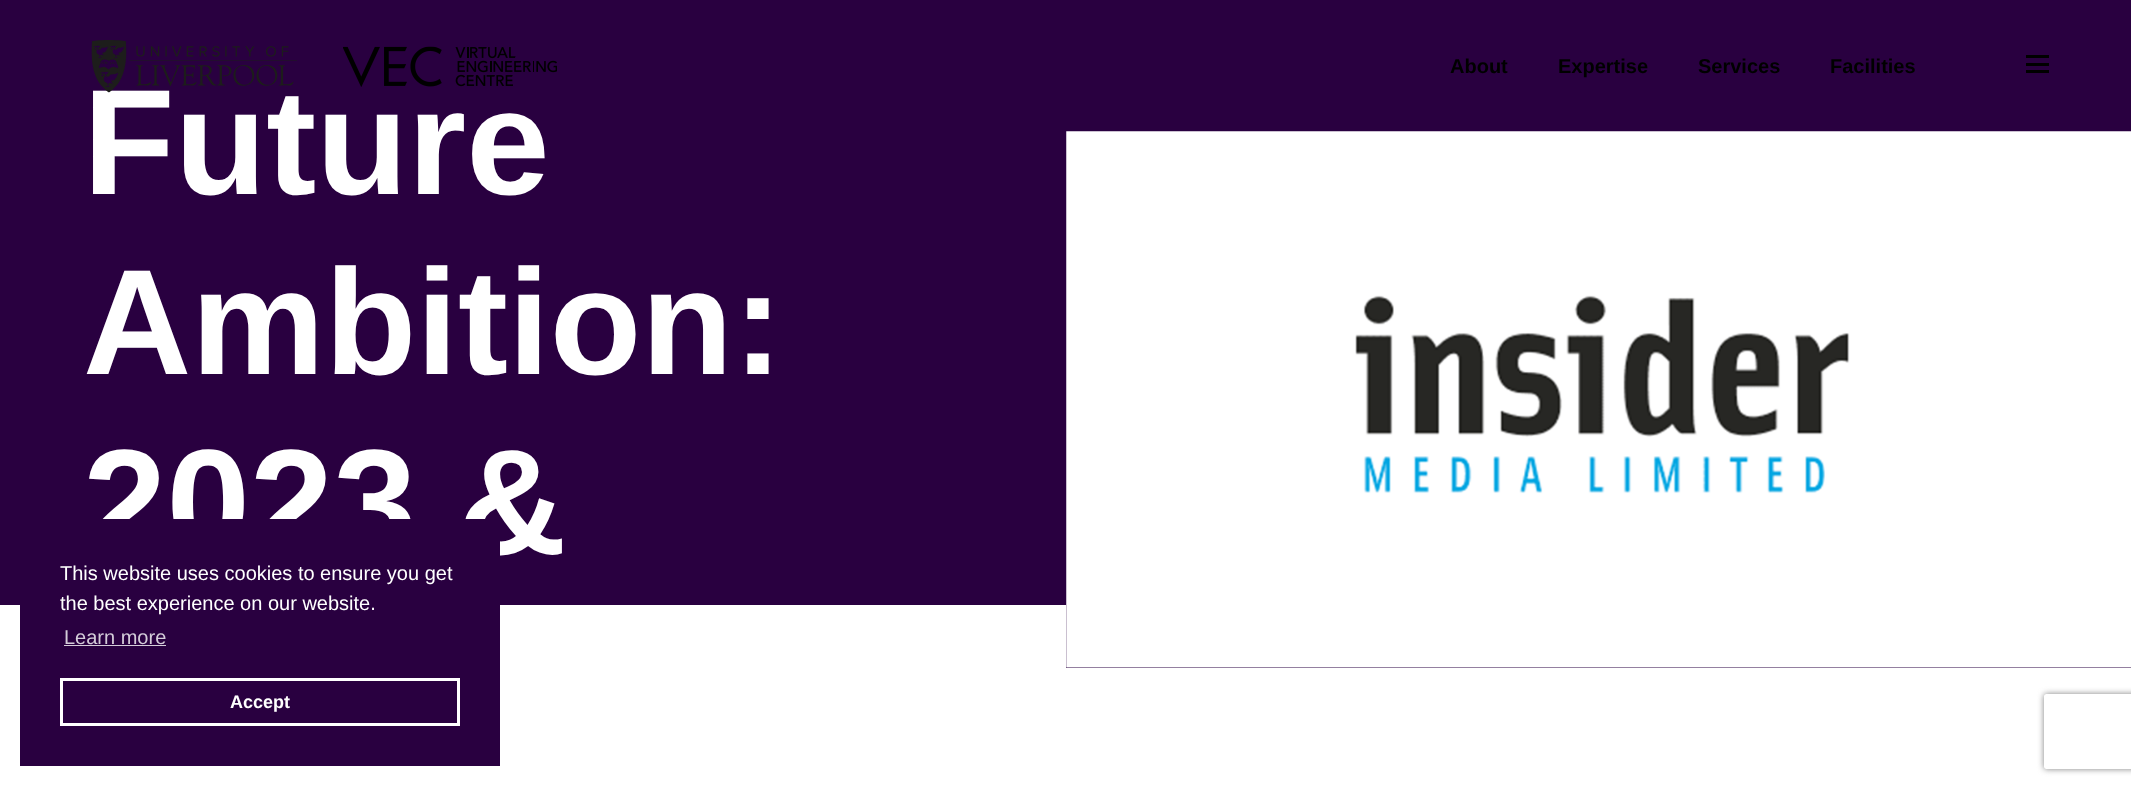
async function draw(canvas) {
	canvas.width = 2131;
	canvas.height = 786;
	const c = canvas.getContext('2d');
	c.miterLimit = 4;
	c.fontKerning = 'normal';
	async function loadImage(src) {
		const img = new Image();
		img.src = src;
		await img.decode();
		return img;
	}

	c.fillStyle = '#fff';
	c.fillRect(0, 0, 2131, 786);
	c.fillStyle = '#290040';
	c.fillRect(0, 0, 2131, 605);
	c.font = 'bold 150px Liberation Sans';
	c.fillStyle = '#fff';
	c.fillText('Future', 83, 194);
	c.drawImage(await loadImage('img1.png'), 91, 40, 206, 53);
	c.drawImage(await loadImage('img2.png'), 343, 46, 214, 41);
	c.font = 'bold 20px Liberation Sans';
	c.fillStyle = '#000';
	for (const [text, x, y] of [
		['About', 1450, 73],
		['Expertise', 1558, 73],
		['Services', 1698, 73],
		['Facilities', 1830, 73],
	]) {
		c.fillText(text, x, y);
	}
	for (const [x, y, w, h, color] of [
		[2026, 63, 23, 3, '#000'],
		[2026, 55, 23, 3, '#000'],
		[2026, 70, 23, 3, '#000'],
	]) {
		c.fillStyle = color;
		c.fillRect(x, y, w, h);
	}
	c.font = 'bold 150px Liberation Sans';
	c.fillStyle = '#fff';
	c.fillText('Ambition:', 83, 374);
	c.fillText('2023 &', 83, 554);
	c.fillStyle = '#290040';
	c.fillRect(1066, 605, 1065, 63);
	c.drawImage(await loadImage('img3.png'), 1066, 131, 1065, 537);
	c.save();
	c.beginPath();
	c.moveTo(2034, 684);
	c.lineTo(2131, 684);
	c.lineTo(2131, 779);
	c.lineTo(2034, 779);
	c.closePath();
	c.moveTo(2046.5, 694);
	c.lineTo(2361.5, 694);
	c.bezierCurveTo(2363, 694, 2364, 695, 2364, 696.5);
	c.lineTo(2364, 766.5);
	c.bezierCurveTo(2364, 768, 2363, 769, 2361.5, 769);
	c.lineTo(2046.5, 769);
	c.bezierCurveTo(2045, 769, 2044, 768, 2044, 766.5);
	c.lineTo(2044, 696.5);
	c.bezierCurveTo(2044, 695, 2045, 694, 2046.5, 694);
	c.closePath();
	c.clip('evenodd');
	c.fillStyle = '#808080';
	c.filter = 'blur(3px)';
	c.beginPath();
	c.roundRect(2044, 694, 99, 75, 2.5);
	c.fill();
	c.filter = 'none';
	c.restore();
	c.fillRect(20, 519, 480, 247);
	c.font = '20px Liberation Sans';
	c.fillStyle = '#fff';
	c.fillText('This website uses cookies to ensure you get', 60, 580);
	c.fillText('the best experience on our website.', 60, 610);
	c.fillStyle = '#d4ccd9';
	c.fillText('Learn more', 64, 644);
	c.fillRect(64, 645, 102, 1);
	c.strokeStyle = '#fff';
	c.lineWidth = 3;
	c.strokeRect(61.5, 679.5, 397, 45);
	c.font = 'bold 18px Liberation Sans';
	c.fillStyle = '#fff';
	c.fillText('Accept', 230, 708);
}

draw(document.querySelector('canvas'));
